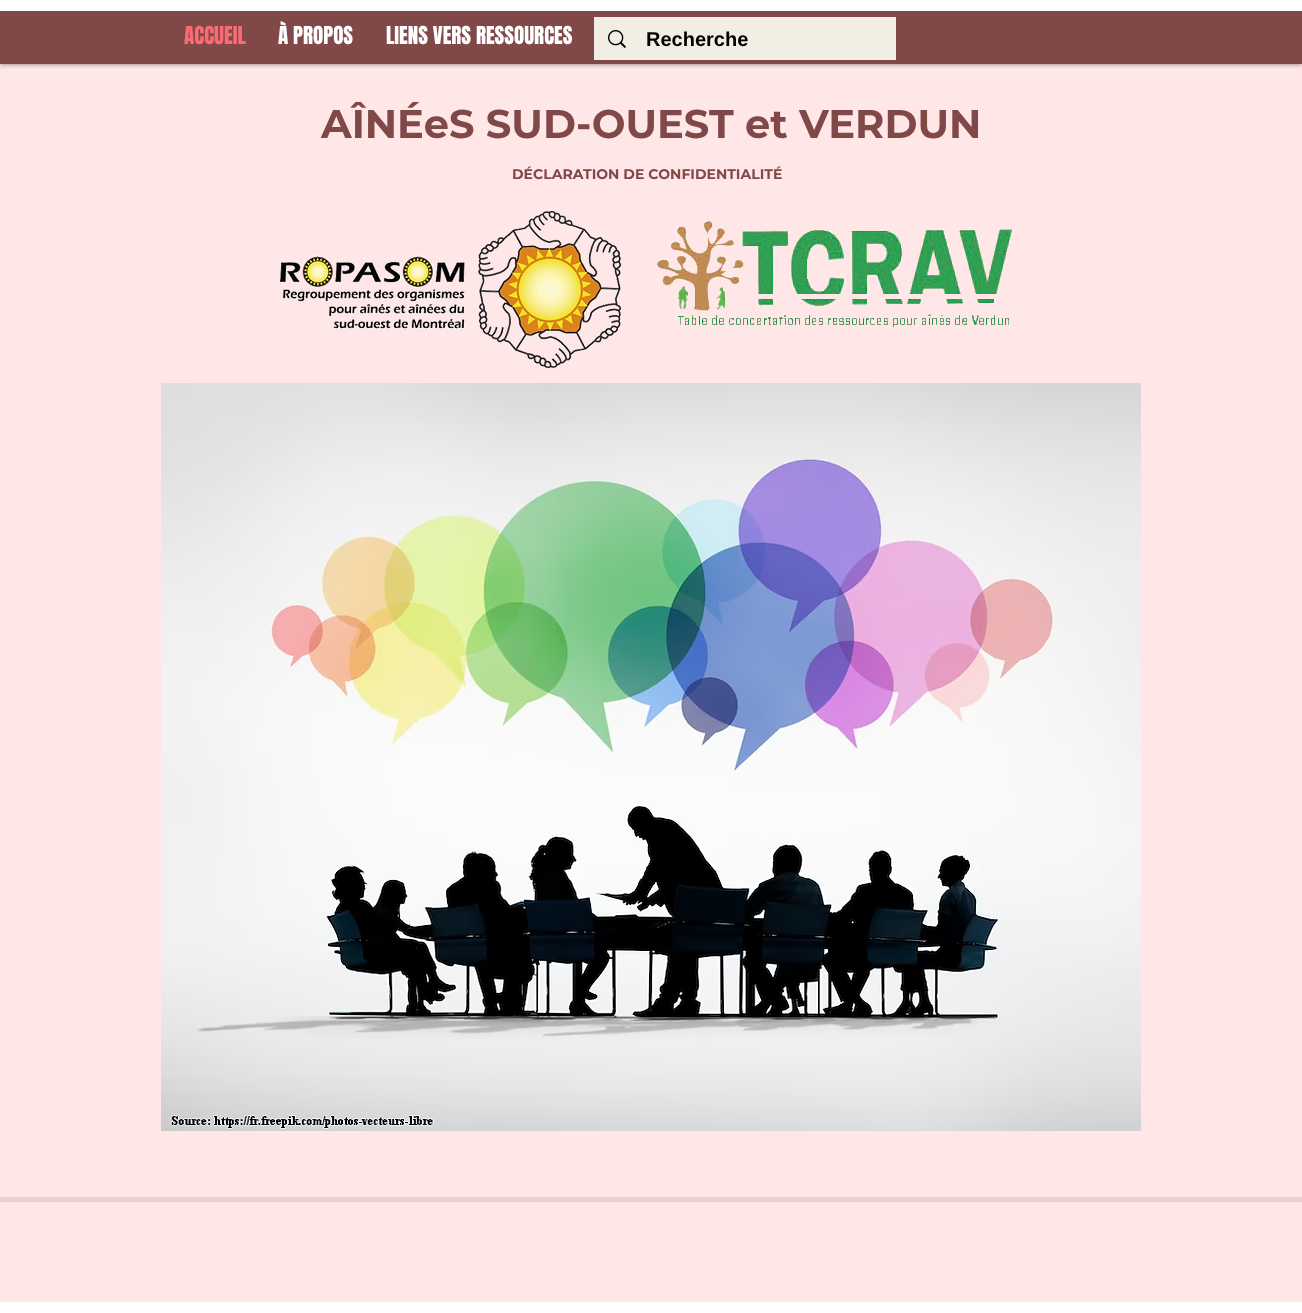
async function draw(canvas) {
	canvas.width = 1302;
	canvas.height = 1313;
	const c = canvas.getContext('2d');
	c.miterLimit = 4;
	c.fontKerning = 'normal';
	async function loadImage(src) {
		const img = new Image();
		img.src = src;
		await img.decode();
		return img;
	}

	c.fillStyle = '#ffe6e7';
	c.fillRect(0, 0, 1302, 1313);
	c.fillStyle = '#00000080';
	c.filter = 'blur(2.5px)';
	c.beginPath();
	c.rect(0, 0, 1302, 64);
	c.fill();
	c.filter = 'none';
	c.fillStyle = '#fff';
	c.fillRect(0, 0, 1302, 11);
	c.fillStyle = '#814848';
	c.fillRect(0, 11, 1302, 53);
	c.font = '21px Anton';
	c.fillStyle = '#fa6b75';
	c.fillText('ACCUEIL', 184, 44);
	c.fillStyle = '#fff';
	c.fillText('À PROPOS', 278, 44);
	c.fillText('LIENS VERS RESSOURCES', 386, 44);
	c.fillStyle = '#f2eee4';
	c.fillRect(594, 17, 302, 43);
	c.drawImage(await loadImage('img1.png'), 608, 30, 18, 18);
	c.font = 'bold 20px Liberation Sans';
	c.fillStyle = '#000';
	c.fillText('Recherche', 646, 46);
	c.font = 'bold 40px Montserrat';
	c.fillStyle = '#814848';
	c.fillText('AÎNÉeS SUD-OUEST et VERDUN', 321, 138);
	c.font = 'bold 14px Montserrat';
	c.fillText('DÉCLARATION DE CONFIDENTIALITÉ', 512, 179);
	c.drawImage(await loadImage('img2.png'), 280, 211, 341, 157);
	c.drawImage(await loadImage('img3.png'), 657, 221, 355, 106);
	c.drawImage(await loadImage('img4.png'), 161, 383, 980, 748);
	c.fillStyle = '#f0cece';
	c.fillRect(0, 1197, 1302, 5);
	c.fillStyle = '#fff';
	c.fillRect(0, 1302, 1302, 11);
}

draw(document.querySelector('canvas'));
